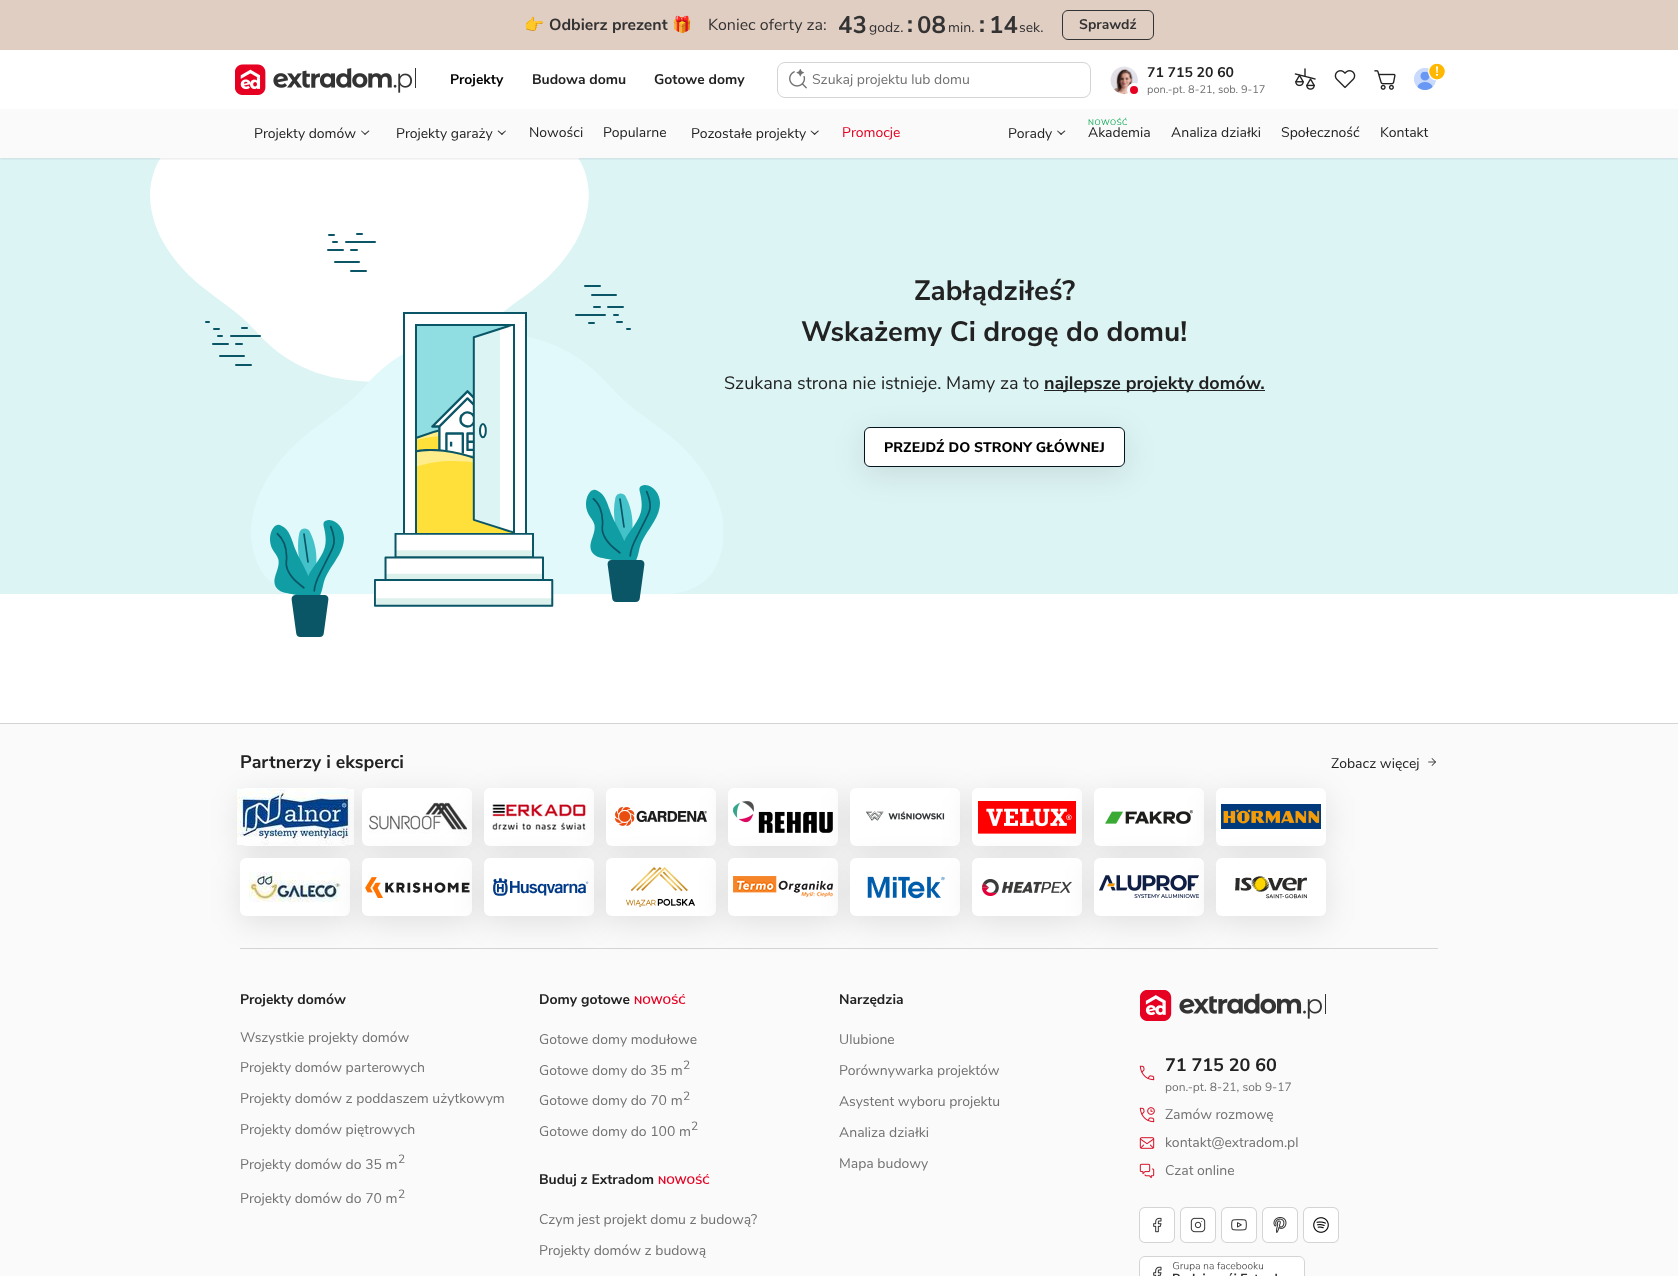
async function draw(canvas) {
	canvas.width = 1678;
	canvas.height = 1276;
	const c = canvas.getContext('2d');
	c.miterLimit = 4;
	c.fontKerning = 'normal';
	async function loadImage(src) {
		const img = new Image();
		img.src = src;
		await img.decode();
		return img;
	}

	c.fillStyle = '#fff';
	c.fillRect(0, 0, 1678, 1276);
	c.fillStyle = '#e1cec3';
	c.fillRect(0, 0, 1678, 50);
	c.font = 'bold 16px Noto Color Emoji';
	c.fillStyle = '#333';
	c.fillText('👉', 524, 30);
	c.font = 'bold 16px Nunito Sans';
	c.fillText('Odbierz prezent', 549, 30);
	c.font = 'bold 16px Noto Color Emoji';
	c.fillText('🎁', 672, 30);
	c.font = '16px Nunito Sans';
	c.fillText('Koniec oferty za:', 708, 30);
	c.font = 'bold 24px Nunito Sans';
	c.fillText('43', 838, 33);
	c.font = '14px Nunito Sans';
	c.fillText('godz.', 869, 32);
	c.font = 'bold 24px Nunito Sans';
	c.fillText(':', 907, 32);
	c.fillText('08', 917, 33);
	c.font = '14px Nunito Sans';
	c.fillText('min.', 948, 32);
	c.font = 'bold 24px Nunito Sans';
	c.fillText(':', 979, 32);
	c.fillText('14', 989, 33);
	c.font = '14px Nunito Sans';
	c.fillText('sek.', 1019, 32);
	c.beginPath();
	c.roundRect(1062.5, 10.5, 91, 29, 5.5);
	c.strokeStyle = '#333';
	c.stroke();
	c.font = 'bold 14px Nunito Sans';
	c.fillText('Sprawdź', 1079, 29);
	c.fillStyle = '#ddf4f5';
	c.fillRect(0, 158, 1678, 436);
	c.drawImage(await loadImage('img9.png'), 150, 158, 573, 479);
	c.save();
	c.beginPath();
	c.rect(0, 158, 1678, 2);
	c.clip();
	c.fillStyle = '#1018281a';
	c.filter = 'blur(1.5px)';
	c.beginPath();
	c.rect(0, 51, 1678, 108);
	c.fill();
	c.filter = 'none';
	c.restore();
	c.drawImage(await loadImage('img1.png'), 235, 64, 181, 31);
	c.fillStyle = '#000';
	c.fillText('Projekty', 450, 84);
	c.fillStyle = '#222';
	c.fillText('Budowa domu', 532, 84);
	c.fillText('Gotowe domy', 654, 84);
	c.beginPath();
	c.roundRect(777.5, 62.5, 313, 35, 7.5);
	c.strokeStyle = '#d4d4d4';
	c.stroke();
	c.drawImage(await loadImage('img2.png'), 789, 69, 18, 20);
	c.font = '14px Nunito Sans';
	c.fillStyle = '#717171';
	c.fillText('Szukaj projektu lub domu', 812, 84);
	c.drawImage(await loadImage('img3.png'), 1110, 66, 28, 28);
	c.font = 'bold 14px Nunito Sans';
	c.fillStyle = '#222';
	c.fillText('71 715 20 60', 1147, 77);
	c.font = '11px Nunito Sans';
	c.fillStyle = '#717171';
	c.fillText('pon.-pt. 8-21, sob. 9-17', 1147, 93);
	c.fillStyle = '#e60022';
	c.beginPath();
	c.arc(1134, 90, 5.5, 0, 2 * Math.PI);
	c.fill();
	c.strokeStyle = '#fff';
	c.lineWidth = 3;
	c.stroke();
	c.drawImage(await loadImage('img4.png'), 1294, 68, 22, 22);
	c.drawImage(await loadImage('img5.png'), 1334, 70, 22, 19);
	c.drawImage(await loadImage('img6.png'), 1374, 70, 22, 20);
	c.drawImage(await loadImage('img7.png'), 1414, 68, 22, 22);
	c.drawImage(await loadImage('img8.png'), 1428, 63, 18, 18);
	c.fillStyle = '#fafafa';
	c.fillRect(0, 109, 1678, 49);
	c.font = '14px Nunito Sans';
	c.fillStyle = '#222';
	c.fillText('Projekty domów', 254, 138);
	c.fillStyle = '#333';
	c.beginPath();
	c.moveTo(369.5, 131);
	c.lineTo(365, 135);
	c.lineTo(364.5, 134);
	c.lineTo(368.5, 130.5);
	c.closePath();
	c.fill();
	c.beginPath();
	c.moveTo(365.5, 134);
	c.lineTo(365, 135);
	c.lineTo(361, 131);
	c.lineTo(361.5, 130.5);
	c.closePath();
	c.fill();
	c.fillStyle = '#222';
	c.fillText('Projekty garaży', 396, 138);
	c.fillStyle = '#333';
	c.beginPath();
	c.moveTo(506, 131);
	c.lineTo(502, 135);
	c.lineTo(501, 134);
	c.lineTo(505.5, 130.5);
	c.closePath();
	c.fill();
	c.beginPath();
	c.moveTo(502.5, 134);
	c.lineTo(502, 135);
	c.lineTo(497.5, 131);
	c.lineTo(498.5, 130.5);
	c.closePath();
	c.fill();
	c.fillStyle = '#222';
	for (const [text, x, y] of [
		['Nowości', 529, 137],
		['Popularne', 603, 137],
		['Pozostałe projekty', 691, 138],
	]) {
		c.fillText(text, x, y);
	}
	c.fillStyle = '#333';
	c.beginPath();
	c.moveTo(819, 131);
	c.lineTo(814.5, 135);
	c.lineTo(814, 134);
	c.lineTo(818, 130.5);
	c.closePath();
	c.fill();
	c.beginPath();
	c.moveTo(815.5, 134);
	c.lineTo(814.5, 135);
	c.lineTo(810.5, 131);
	c.lineTo(811, 130.5);
	c.closePath();
	c.fill();
	c.fillStyle = '#e60022';
	c.fillText('Promocje', 842, 137);
	c.fillStyle = '#222';
	c.fillText('Porady', 1008, 138);
	c.fillStyle = '#333';
	c.beginPath();
	c.moveTo(1065.5, 131);
	c.lineTo(1061, 135);
	c.lineTo(1060.5, 134);
	c.lineTo(1064.5, 130.5);
	c.closePath();
	c.fill();
	c.beginPath();
	c.moveTo(1062, 134);
	c.lineTo(1061, 135);
	c.lineTo(1057, 131);
	c.lineTo(1057.5, 130.5);
	c.closePath();
	c.fill();
	c.letterSpacing = '0.5px';
	c.font = '8px Nunito Sans';
	c.fillStyle = '#06a84f';
	c.fillText('NOWOŚĆ', 1088, 125);
	c.letterSpacing = '0px';
	c.font = '14px Nunito Sans';
	c.fillStyle = '#222';
	for (const [text, x, y] of [
		['Akademia', 1088, 137],
		['Analiza działki', 1171, 137],
		['Społeczność', 1281, 137],
		['Kontakt', 1380, 137],
	]) {
		c.fillText(text, x, y);
	}
	c.font = 'bold 28px Nunito Sans';
	c.fillText('Zabłądziłeś?', 914, 300);
	c.fillText('Wskażemy Ci drogę do domu!', 801, 341);
	c.fillStyle = '#0000001a';
	c.filter = 'blur(15px)';
	c.beginPath();
	c.roundRect(864, 434, 261, 40, 6);
	c.fill();
	c.filter = 'none';
	c.font = '18px Nunito Sans';
	c.fillStyle = '#222';
	c.fillText('Szukana strona nie istnieje. Mamy za to', 724, 389);
	c.fillRect(1044, 390, 221, 1);
	c.font = 'bold 18px Nunito Sans';
	c.fillText('najlepsze projekty domów.', 1044, 389);
	c.fillStyle = '#fff';
	c.beginPath();
	c.roundRect(864.5, 427.5, 260, 39, 5.5);
	c.fill();
	c.strokeStyle = '#01161e';
	c.lineWidth = 1;
	c.stroke();
	c.font = '800 14px Nunito Sans';
	c.fillStyle = '#000';
	c.fillText('PRZEJDŹ DO STRONY GŁÓWNEJ', 884, 452);
	for (const [x, y, w, h, color] of [
		[0, 724, 1678, 552, '#fafafa'],
		[0, 723, 1678, 1, '#d4d4d4'],
		[240, 948, 1198, 1, '#d4d4d4'],
	]) {
		c.fillStyle = color;
		c.fillRect(x, y, w, h);
	}
	c.fillStyle = '#0000001a';
	c.filter = 'blur(15px)';
	c.beginPath();
	c.roundRect(240, 795, 110, 58, 6);
	c.fill();
	c.filter = 'none';
	c.fillStyle = '#fff';
	c.beginPath();
	c.roundRect(240, 788, 110, 58, 6);
	c.fill();
	c.drawImage(await loadImage('img10.png'), 237, 789, 117, 56);
	c.fillStyle = '#0000001a';
	c.filter = 'blur(15px)';
	c.beginPath();
	c.roundRect(362, 795, 110, 58, 6);
	c.fill();
	c.filter = 'none';
	c.fillStyle = '#fff';
	c.beginPath();
	c.roundRect(362, 788, 110, 58, 6);
	c.fill();
	c.drawImage(await loadImage('img11.png'), 367, 802, 100, 32);
	c.fillStyle = '#0000001a';
	c.filter = 'blur(15px)';
	c.beginPath();
	c.roundRect(484, 795, 110, 58, 6);
	c.fill();
	c.filter = 'none';
	c.fillStyle = '#fff';
	c.beginPath();
	c.roundRect(484, 788, 110, 58, 6);
	c.fill();
	c.drawImage(await loadImage('img12.png'), 492, 802, 95, 30);
	c.fillStyle = '#0000001a';
	c.filter = 'blur(15px)';
	c.beginPath();
	c.roundRect(606, 795, 110, 58, 6);
	c.fill();
	c.filter = 'none';
	c.fillStyle = '#fff';
	c.beginPath();
	c.roundRect(606, 788, 110, 58, 6);
	c.fill();
	c.drawImage(await loadImage('img13.png'), 611, 803, 96, 30);
	c.fillStyle = '#0000001a';
	c.filter = 'blur(15px)';
	c.beginPath();
	c.roundRect(728, 795, 110, 58, 6);
	c.fill();
	c.filter = 'none';
	c.fillStyle = '#fff';
	c.beginPath();
	c.roundRect(728, 788, 110, 58, 6);
	c.fill();
	c.drawImage(await loadImage('img14.png'), 733, 801, 100, 32);
	c.fillStyle = '#0000001a';
	c.filter = 'blur(15px)';
	c.beginPath();
	c.roundRect(850, 795, 110, 58, 6);
	c.fill();
	c.filter = 'none';
	c.fillStyle = '#fff';
	c.beginPath();
	c.roundRect(850, 788, 110, 58, 6);
	c.fill();
	c.drawImage(await loadImage('img15.png'), 866, 811, 79, 10);
	c.fillStyle = '#0000001a';
	c.filter = 'blur(15px)';
	c.beginPath();
	c.roundRect(972, 795, 110, 58, 6);
	c.fill();
	c.filter = 'none';
	c.fillStyle = '#fff';
	c.beginPath();
	c.roundRect(972, 788, 110, 58, 6);
	c.fill();
	c.drawImage(await loadImage('img16.png'), 978, 801, 98, 33);
	c.fillStyle = '#0000001a';
	c.filter = 'blur(15px)';
	c.beginPath();
	c.roundRect(1094, 795, 110, 58, 6);
	c.fill();
	c.filter = 'none';
	c.fillStyle = '#fff';
	c.beginPath();
	c.roundRect(1094, 788, 110, 58, 6);
	c.fill();
	c.drawImage(await loadImage('img17.png'), 1105, 810, 88, 14);
	c.fillStyle = '#0000001a';
	c.filter = 'blur(15px)';
	c.beginPath();
	c.roundRect(1216, 795, 110, 58, 6);
	c.fill();
	c.filter = 'none';
	c.fillStyle = '#fff';
	c.beginPath();
	c.roundRect(1216, 788, 110, 58, 6);
	c.fill();
	c.drawImage(await loadImage('img18.png'), 1221, 804, 100, 25);
	c.fillStyle = '#0000001a';
	c.filter = 'blur(15px)';
	c.beginPath();
	c.roundRect(240, 865, 110, 58, 6);
	c.fill();
	c.filter = 'none';
	c.fillStyle = '#fff';
	c.beginPath();
	c.roundRect(240, 858, 110, 58, 6);
	c.fill();
	c.drawImage(await loadImage('img19.png'), 249, 872, 92, 30);
	c.fillStyle = '#0000001a';
	c.filter = 'blur(15px)';
	c.beginPath();
	c.roundRect(362, 865, 110, 58, 6);
	c.fill();
	c.filter = 'none';
	c.fillStyle = '#fff';
	c.beginPath();
	c.roundRect(362, 858, 110, 58, 6);
	c.fill();
	c.drawImage(await loadImage('img20.png'), 365, 877, 105, 21);
	c.fillStyle = '#0000001a';
	c.filter = 'blur(15px)';
	c.beginPath();
	c.roundRect(484, 865, 110, 58, 6);
	c.fill();
	c.filter = 'none';
	c.fillStyle = '#fff';
	c.beginPath();
	c.roundRect(484, 858, 110, 58, 6);
	c.fill();
	c.drawImage(await loadImage('img21.png'), 493, 878, 96, 18);
	c.fillStyle = '#0000001a';
	c.filter = 'blur(15px)';
	c.beginPath();
	c.roundRect(606, 865, 110, 58, 6);
	c.fill();
	c.filter = 'none';
	c.fillStyle = '#fff';
	c.beginPath();
	c.roundRect(606, 858, 110, 58, 6);
	c.fill();
	c.drawImage(await loadImage('img22.png'), 626, 867, 69, 40);
	c.fillStyle = '#0000001a';
	c.filter = 'blur(15px)';
	c.beginPath();
	c.roundRect(728, 865, 110, 58, 6);
	c.fill();
	c.filter = 'none';
	c.fillStyle = '#fff';
	c.beginPath();
	c.roundRect(728, 858, 110, 58, 6);
	c.fill();
	c.drawImage(await loadImage('img23.png'), 733, 876, 100, 21);
	c.fillStyle = '#0000001a';
	c.filter = 'blur(15px)';
	c.beginPath();
	c.roundRect(850, 865, 110, 58, 6);
	c.fill();
	c.filter = 'none';
	c.fillStyle = '#fff';
	c.beginPath();
	c.roundRect(850, 858, 110, 58, 6);
	c.fill();
	c.drawImage(await loadImage('img24.png'), 867, 876, 78, 23);
	c.fillStyle = '#0000001a';
	c.filter = 'blur(15px)';
	c.beginPath();
	c.roundRect(972, 865, 110, 58, 6);
	c.fill();
	c.filter = 'none';
	c.fillStyle = '#fff';
	c.beginPath();
	c.roundRect(972, 858, 110, 58, 6);
	c.fill();
	c.drawImage(await loadImage('img25.png'), 982, 879, 90, 17);
	c.fillStyle = '#0000001a';
	c.filter = 'blur(15px)';
	c.beginPath();
	c.roundRect(1094, 865, 110, 58, 6);
	c.fill();
	c.filter = 'none';
	c.fillStyle = '#fff';
	c.beginPath();
	c.roundRect(1094, 858, 110, 58, 6);
	c.fill();
	c.drawImage(await loadImage('img26.png'), 1099, 875, 100, 23);
	c.fillStyle = '#0000001a';
	c.filter = 'blur(15px)';
	c.beginPath();
	c.roundRect(1216, 865, 110, 58, 6);
	c.fill();
	c.filter = 'none';
	c.fillStyle = '#fff';
	c.beginPath();
	c.roundRect(1216, 858, 110, 58, 6);
	c.fill();
	c.drawImage(await loadImage('img27.png'), 1235, 876, 72, 23);
	c.font = 'bold 18px Nunito Sans';
	c.fillStyle = '#222';
	c.fillText('Partnerzy i eksperci', 240, 768);
	c.font = '14px Nunito Sans';
	c.fillText('Zobacz więcej', 1331, 768);
	c.drawImage(await loadImage('img28.png'), 1428, 758, 8, 8);
	c.font = 'bold 14px Nunito Sans';
	c.fillText('Projekty domów', 240, 1004);
	c.font = '14px Nunito Sans';
	c.fillStyle = '#717171';
	for (const [text, x, y] of [
		['Wszystkie projekty domów', 240, 1042],
		['Projekty domów parterowych', 240, 1072],
		['Projekty domów z poddaszem użytkowym', 240, 1103],
		['Projekty domów piętrowych', 240, 1134],
		['Projekty domów do 35 m', 240, 1169],
	]) {
		c.fillText(text, x, y);
	}
	c.font = '12px Nunito Sans';
	c.fillText('2', 398, 1163);
	c.font = '14px Nunito Sans';
	c.fillText('Projekty domów do 70 m', 240, 1203);
	c.font = '12px Nunito Sans';
	c.fillText('2', 398, 1198);
	c.font = 'bold 14px Nunito Sans';
	c.fillStyle = '#222';
	c.fillText('Domy gotowe', 539, 1004);
	c.font = 'bold 11px Nunito Sans';
	c.fillStyle = '#e60022';
	c.fillText('NOWOŚĆ', 634, 1004);
	c.font = '14px Nunito Sans';
	c.fillStyle = '#717171';
	c.fillText('Gotowe domy modułowe', 539, 1044);
	c.fillText('Gotowe domy do 35 m', 539, 1075);
	c.font = '12px Nunito Sans';
	c.fillText('2', 683, 1069);
	c.font = '14px Nunito Sans';
	c.fillText('Gotowe domy do 70 m', 539, 1105);
	c.font = '12px Nunito Sans';
	c.fillText('2', 683, 1100);
	c.font = '14px Nunito Sans';
	c.fillText('Gotowe domy do 100 m', 539, 1136);
	c.font = '12px Nunito Sans';
	c.fillText('2', 691, 1130);
	c.font = 'bold 14px Nunito Sans';
	c.fillStyle = '#222';
	c.fillText('Buduj z Extradom', 539, 1184);
	c.font = 'bold 11px Nunito Sans';
	c.fillStyle = '#e60022';
	c.fillText('NOWOŚĆ', 658, 1184);
	c.font = '14px Nunito Sans';
	c.fillStyle = '#717171';
	c.fillText('Czym jest projekt domu z budową?', 539, 1224);
	c.fillText('Projekty domów z budową', 539, 1255);
	c.font = 'bold 14px Nunito Sans';
	c.fillStyle = '#222';
	c.fillText('Narzędzia', 839, 1004);
	c.font = '14px Nunito Sans';
	c.fillStyle = '#717171';
	for (const [text, x, y] of [
		['Ulubione', 839, 1044],
		['Porównywarka projektów', 839, 1075],
		['Asystent wyboru projektu', 839, 1106],
		['Analiza działki', 839, 1137],
		['Mapa budowy', 839, 1168],
	]) {
		c.fillText(text, x, y);
	}
	c.drawImage(await loadImage('img29.png'), 1140, 990, 186, 31);
	c.drawImage(await loadImage('img30.png'), 1139, 1065, 16, 16);
	c.font = 'bold 18px Nunito Sans';
	c.fillStyle = '#222';
	c.fillText('71 715 20 60', 1165, 1071);
	c.font = '12px Nunito Sans';
	c.fillStyle = '#717171';
	c.fillText('pon.-pt. 8-21, sob 9-17', 1165, 1091);
	c.drawImage(await loadImage('img31.png'), 1139, 1107, 16, 16);
	c.font = '14px Nunito Sans';
	c.fillText('Zamów rozmowę', 1165, 1119);
	c.drawImage(await loadImage('img32.png'), 1139, 1137, 16, 12);
	c.fillText('kontakt@extradom.pl', 1165, 1147);
	c.drawImage(await loadImage('img33.png'), 1139, 1163, 16, 16);
	c.fillText('Czat online', 1165, 1175);
	c.drawImage(await loadImage('img34.png'), 1139, 1207, 36, 36);
	c.drawImage(await loadImage('img35.png'), 1180, 1207, 36, 36);
	c.drawImage(await loadImage('img36.png'), 1221, 1207, 36, 36);
	c.drawImage(await loadImage('img37.png'), 1262, 1207, 36, 36);
	c.drawImage(await loadImage('img38.png'), 1303, 1207, 36, 36);
	c.drawImage(await loadImage('img39.png'), 1139, 1256, 166, 20);
}

draw(document.querySelector('canvas'));
